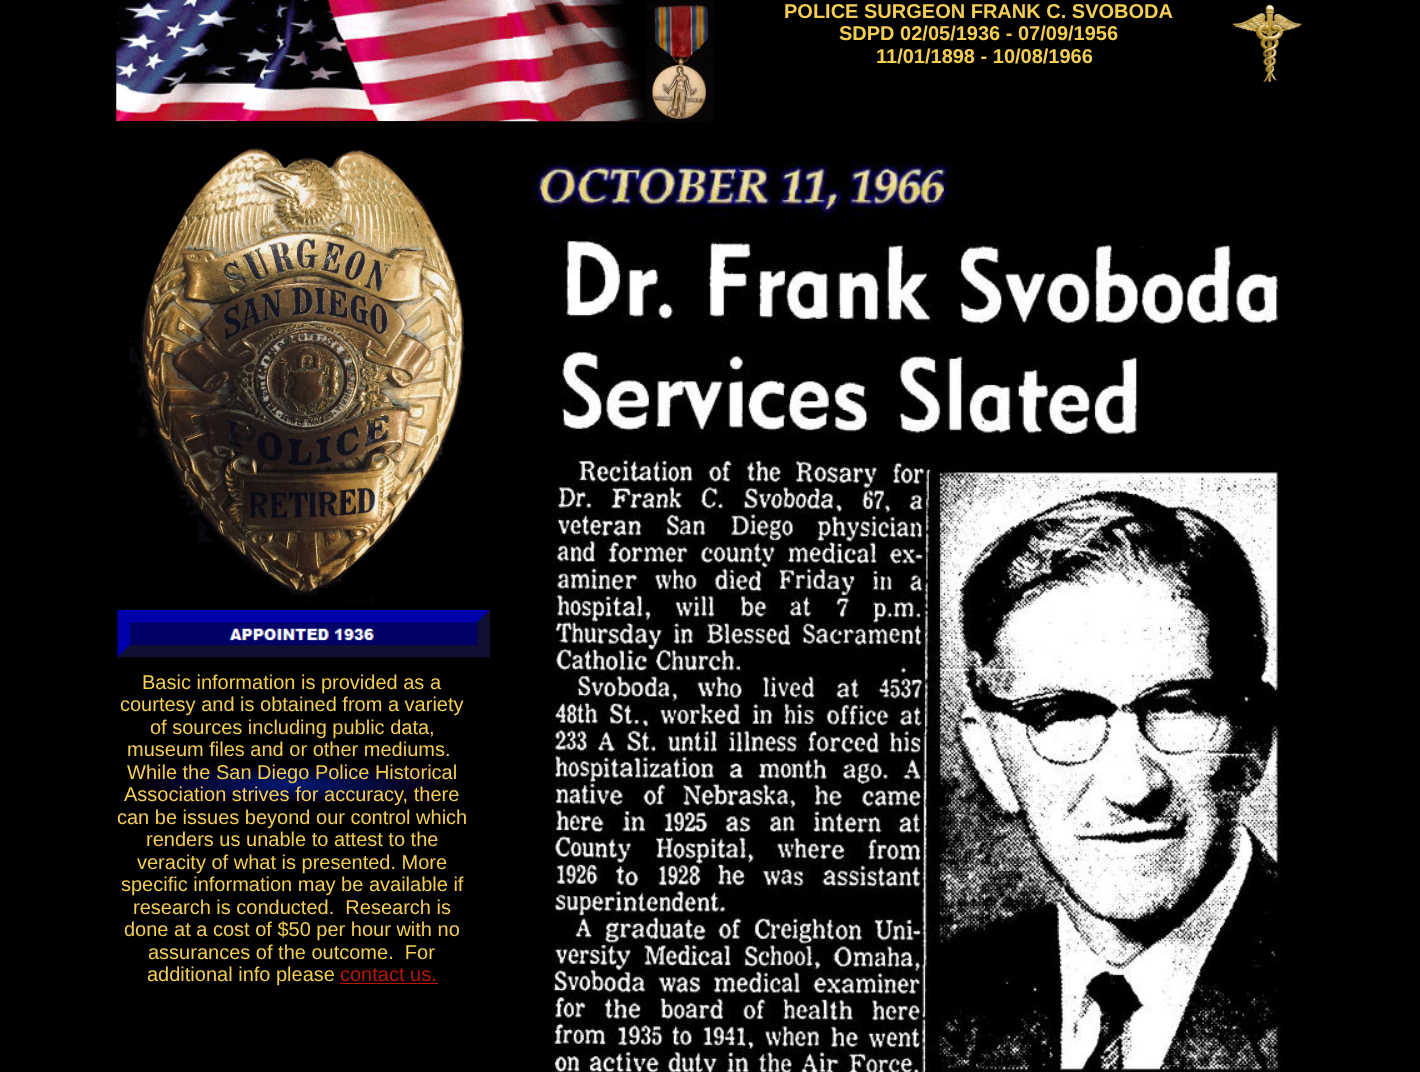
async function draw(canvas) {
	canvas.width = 1420;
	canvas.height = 1072;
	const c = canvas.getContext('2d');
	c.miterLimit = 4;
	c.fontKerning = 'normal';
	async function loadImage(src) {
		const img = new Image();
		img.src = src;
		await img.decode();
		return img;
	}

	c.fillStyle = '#000';
	c.fillRect(0, 0, 1420, 1072);
	c.drawImage(await loadImage('img1.png'), 116, 0, 531, 122);
	c.drawImage(await loadImage('img2.png'), 646, 0, 68, 123);
	c.font = 'bold 20px Liberation Sans';
	c.fillStyle = '#f4ce53';
	for (const [text, x, y] of [
		['POLICE SURGEON FRANK C. SVOBODA', 784, 18],
		['SDPD 02/05/1936 - 07/09/1956', 839, 40],
		['11/01/1898 - 10/08/1966', 876, 63],
	]) {
		c.fillText(text, x, y);
	}
	c.drawImage(await loadImage('img3.png'), 1232, 4, 70, 79);
	c.drawImage(await loadImage('img4.png'), 116, 121, 376, 481);
	c.drawImage(await loadImage('img5.png'), 531, 163, 751, 909);
	c.drawImage(await loadImage('img6.png'), 117, 610, 373, 48);
	c.font = '20px Liberation Sans';
	for (const [text, x, y] of [
		['Basic information is provided as a', 142, 689],
		['courtesy and is obtained from a variety', 120, 711],
		['of sources including public data,', 150, 734],
		['museum files and or other mediums.', 127, 756],
	]) {
		c.fillText(text, x, y);
	}
	c.drawImage(await loadImage('img7.png'), 145, 766, 293, 37);
	for (const [text, x, y] of [
		['While the San Diego Police Historical', 127, 779],
		['Association strives for accuracy, there', 124, 801],
		['can be issues beyond our control which', 117, 824],
		['renders us unable to attest to the', 146, 846],
		['veracity of what is presented. More', 137, 869],
		['specific information may be available if', 121, 891],
		['research is conducted.  Research is', 133, 914],
		['done at a cost of $50 per hour with no', 124, 936],
		['assurances of the outcome.  For', 148, 959],
		['additional info please', 147, 981],
	]) {
		c.fillText(text, x, y);
	}
	c.fillStyle = '#b91806';
	c.fillText('contact us.', 340, 981);
	c.fillRect(340, 983, 98, 1);
}

draw(document.querySelector('canvas'));
